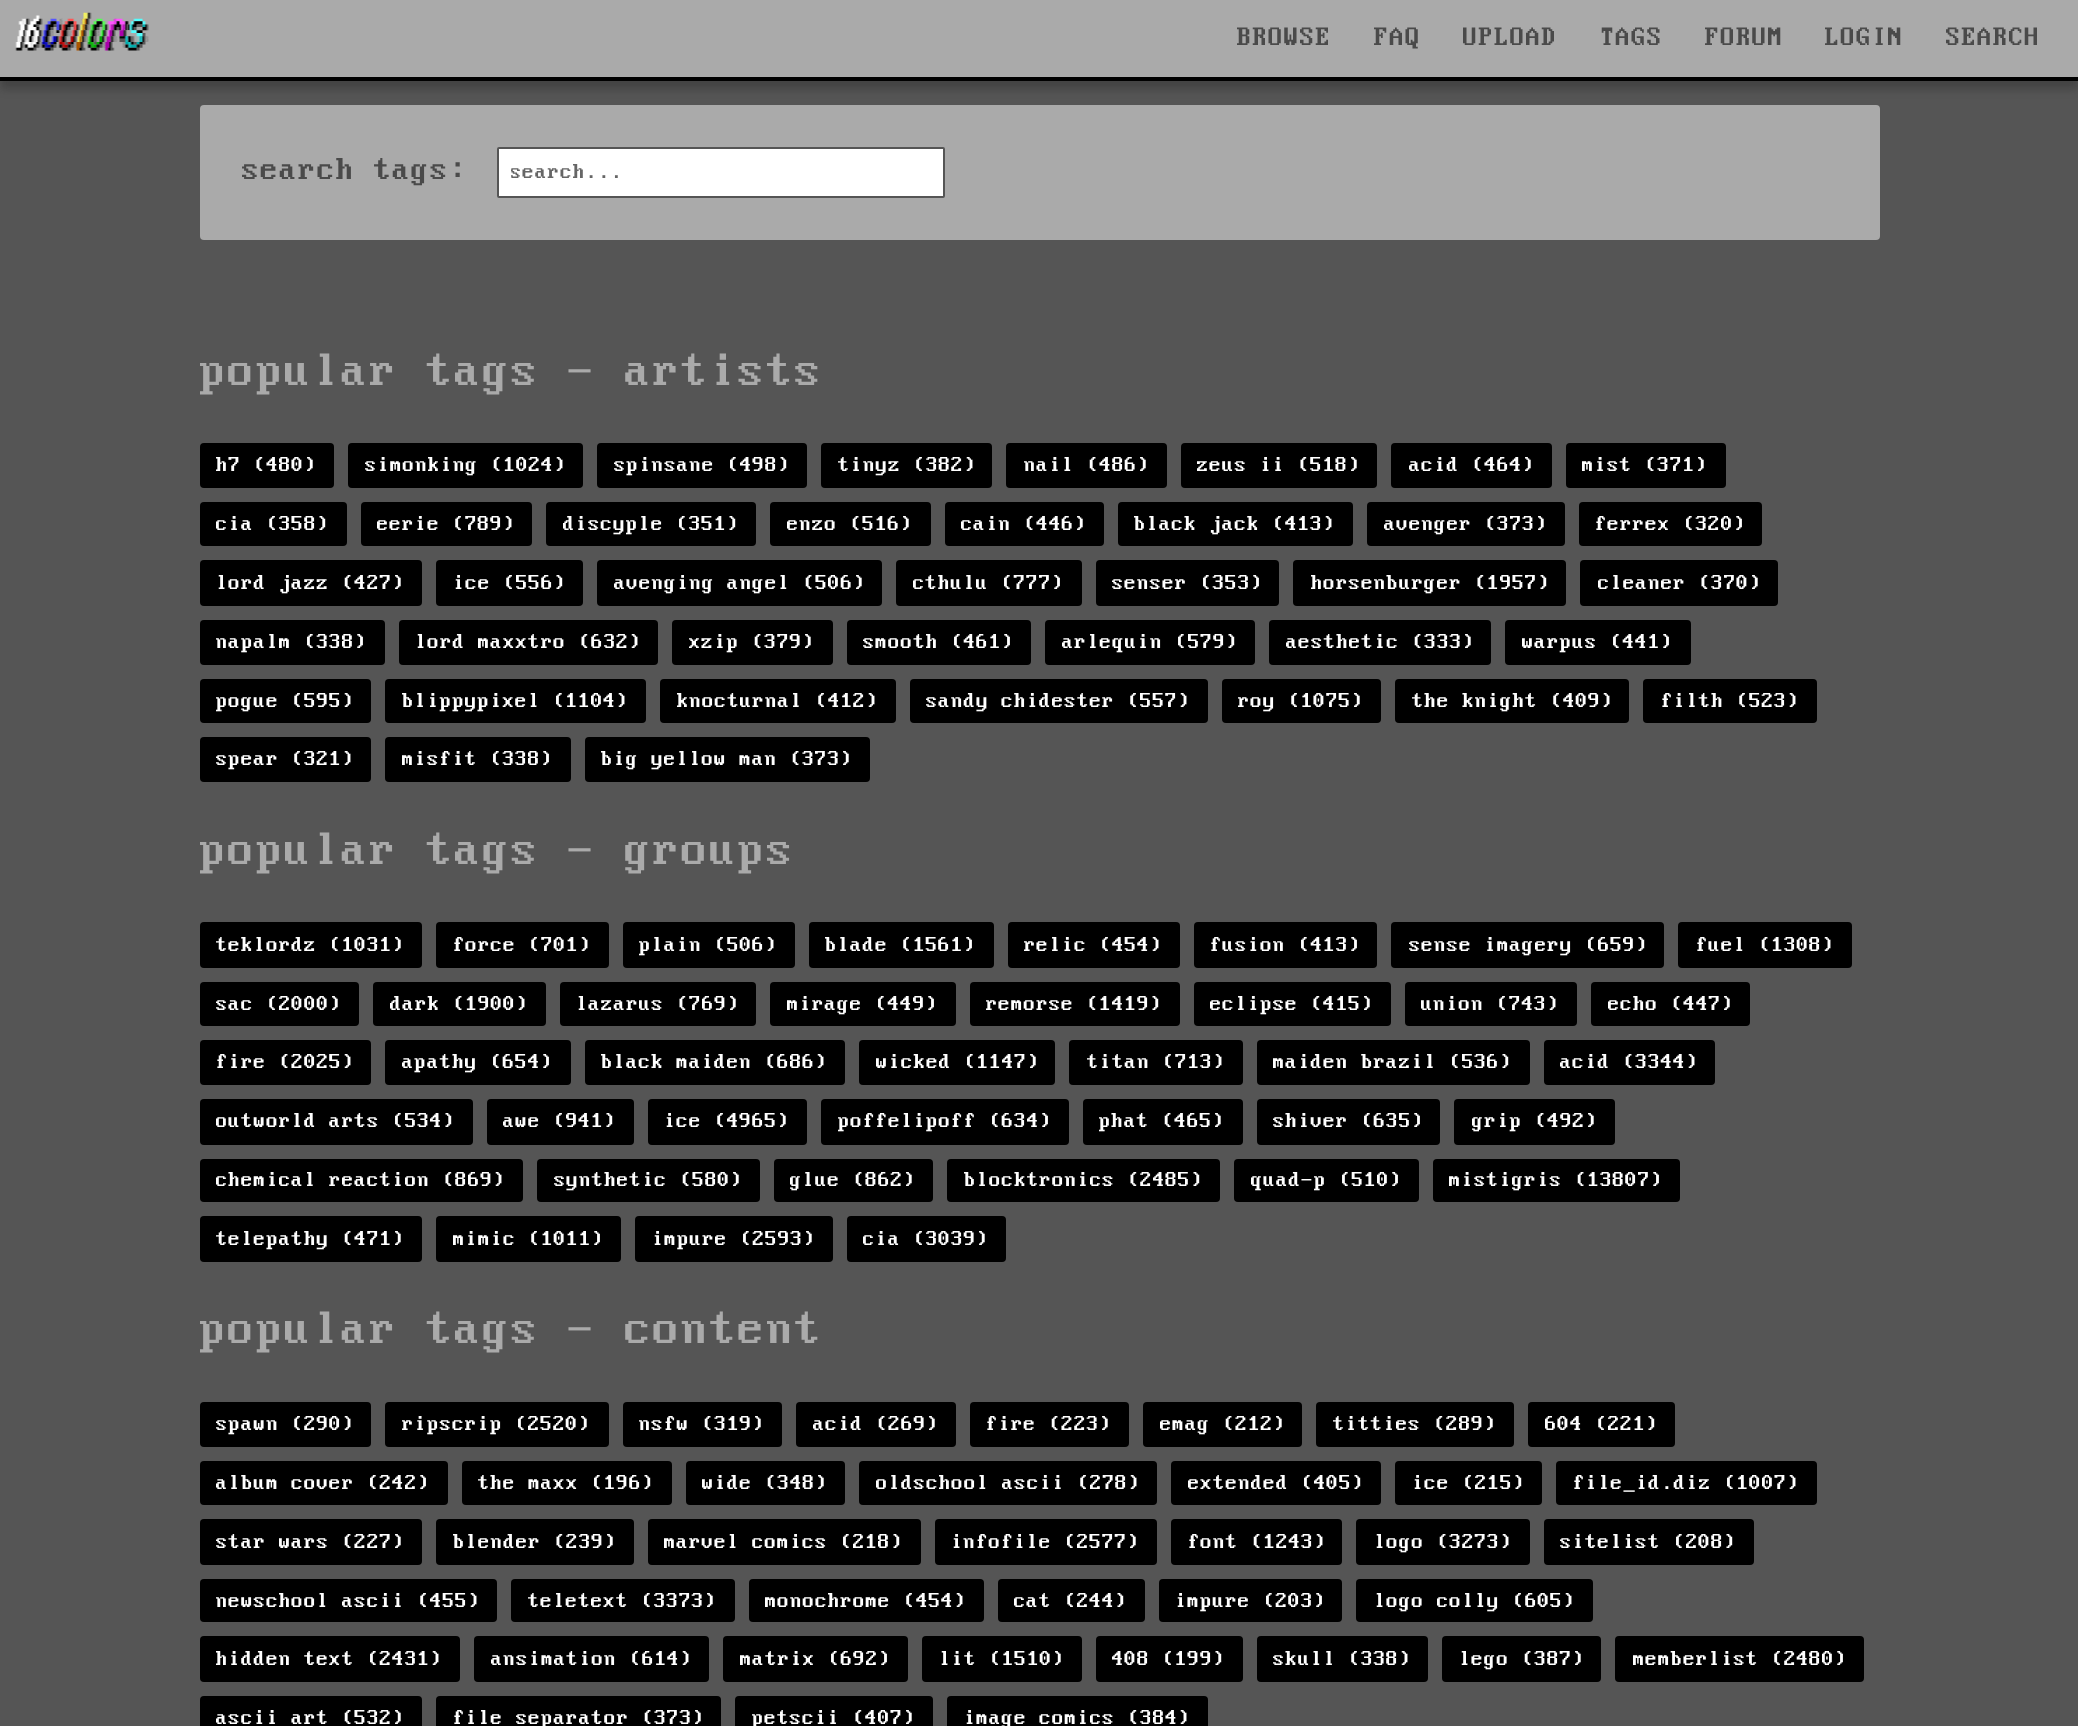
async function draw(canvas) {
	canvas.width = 2078;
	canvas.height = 1726;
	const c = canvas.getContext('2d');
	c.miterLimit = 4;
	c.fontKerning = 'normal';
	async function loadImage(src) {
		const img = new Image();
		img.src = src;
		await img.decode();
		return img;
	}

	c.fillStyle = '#555';
	c.fillRect(0, 0, 2078, 1726);
	c.fillStyle = '#22222259';
	c.filter = 'blur(4.5px)';
	c.beginPath();
	c.rect(0, 9, 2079, 80);
	c.fill();
	c.filter = 'none';
	c.fillStyle = '#aaa';
	c.fillRect(0, 0, 2078, 77);
	c.fillStyle = '#000';
	c.fillRect(0, 77, 2078, 4);
	c.drawImage(await loadImage('img1.png'), 15, 12, 134, 39);
	c.font = '28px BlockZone';
	c.fillStyle = '#4a4a4a';
	for (const [text, x, y] of [
		['BROWSE', 1237, 45],
		['FAQ', 1374, 45],
		['UPLOAD', 1463, 45],
		['TAGS', 1600, 45],
		['FORUM', 1705, 45],
		['LOGIN', 1825, 45],
		['SEARCH', 1946, 45],
	]) {
		c.fillText(text, x, y);
	}
	c.fillStyle = '#aaa';
	c.beginPath();
	c.roundRect(200, 105, 1680, 135, 4);
	c.fill();
	c.font = '33.5px BlockZone';
	c.fillStyle = '#4a4a4a';
	c.fillText('search tags:', 242, 179);
	c.fillStyle = '#fff';
	c.beginPath();
	c.roundRect(498, 148, 446, 49, 1);
	c.fill();
	c.strokeStyle = '#555';
	c.lineWidth = 2;
	c.stroke();
	c.save();
	c.beginPath();
	c.rect(511, 161, 420, 23);
	c.clip();
	c.font = '22.4px BlockZone';
	c.fillStyle = '#666';
	c.fillText('search...', 510, 178);
	c.restore();
	c.font = '50.4px BlockZone';
	c.fillStyle = '#aaa';
	c.fillText('popular tags - artists', 200, 385);
	c.fillStyle = '#000';
	c.beginPath();
	c.roundRect(200, 443, 134, 45, 4);
	c.fill();
	c.font = '22.4px BlockZone';
	c.fillStyle = '#fff';
	c.fillText('h7 (480)', 216, 471);
	c.fillStyle = '#000';
	c.beginPath();
	c.roundRect(348, 443, 235, 45, 4);
	c.fill();
	c.fillStyle = '#fff';
	c.fillText('simonking (1024)', 365, 471);
	c.fillStyle = '#000';
	c.beginPath();
	c.roundRect(597, 443, 210, 45, 4);
	c.fill();
	c.fillStyle = '#fff';
	c.fillText('spinsane (498)', 614, 471);
	c.fillStyle = '#000';
	c.beginPath();
	c.roundRect(821, 443, 171, 45, 4);
	c.fill();
	c.fillStyle = '#fff';
	c.fillText('tinyz (382)', 838, 471);
	c.fillStyle = '#000';
	c.beginPath();
	c.roundRect(1006, 443, 161, 45, 4);
	c.fill();
	c.fillStyle = '#fff';
	c.fillText('nail (486)', 1024, 471);
	c.fillStyle = '#000';
	c.beginPath();
	c.roundRect(1181, 443, 196, 45, 4);
	c.fill();
	c.fillStyle = '#fff';
	c.fillText('zeus ii (518)', 1197, 471);
	c.fillStyle = '#000';
	c.beginPath();
	c.roundRect(1391, 443, 161, 45, 4);
	c.fill();
	c.fillStyle = '#fff';
	c.fillText('acid (464)', 1409, 471);
	c.fillStyle = '#000';
	c.beginPath();
	c.roundRect(1566, 443, 160, 45, 4);
	c.fill();
	c.fillStyle = '#fff';
	c.fillText('mist (371)', 1582, 471);
	c.fillStyle = '#000';
	c.beginPath();
	c.roundRect(200, 502, 147, 44, 4);
	c.fill();
	c.fillStyle = '#fff';
	c.fillText('cia (358)', 216, 530);
	c.fillStyle = '#000';
	c.beginPath();
	c.roundRect(361, 502, 171, 44, 4);
	c.fill();
	c.fillStyle = '#fff';
	c.fillText('eerie (789)', 377, 530);
	c.fillStyle = '#000';
	c.beginPath();
	c.roundRect(546, 502, 210, 44, 4);
	c.fill();
	c.fillStyle = '#fff';
	c.fillText('discyple (351)', 563, 530);
	c.fillStyle = '#000';
	c.beginPath();
	c.roundRect(770, 502, 161, 44, 4);
	c.fill();
	c.fillStyle = '#fff';
	c.fillText('enzo (516)', 787, 530);
	c.fillStyle = '#000';
	c.beginPath();
	c.roundRect(945, 502, 159, 44, 4);
	c.fill();
	c.fillStyle = '#fff';
	c.fillText('cain (446)', 961, 530);
	c.fillStyle = '#000';
	c.beginPath();
	c.roundRect(1118, 502, 235, 44, 4);
	c.fill();
	c.fillStyle = '#fff';
	c.fillText('black jack (413)', 1134, 530);
	c.fillStyle = '#000';
	c.beginPath();
	c.roundRect(1367, 502, 198, 44, 4);
	c.fill();
	c.fillStyle = '#fff';
	c.fillText('avenger (373)', 1384, 530);
	c.fillStyle = '#000';
	c.beginPath();
	c.roundRect(1579, 502, 183, 44, 4);
	c.fill();
	c.fillStyle = '#fff';
	c.fillText('ferrex (320)', 1595, 530);
	c.fillStyle = '#000';
	c.beginPath();
	c.roundRect(200, 560, 222, 46, 4);
	c.fill();
	c.fillStyle = '#fff';
	c.fillText('lord jazz (427)', 216, 589);
	c.fillStyle = '#000';
	c.beginPath();
	c.roundRect(436, 560, 147, 46, 4);
	c.fill();
	c.fillStyle = '#fff';
	c.fillText('ice (556)', 453, 589);
	c.fillStyle = '#000';
	c.beginPath();
	c.roundRect(597, 560, 285, 46, 4);
	c.fill();
	c.fillStyle = '#fff';
	c.fillText('avenging angel (506)', 614, 589);
	c.fillStyle = '#000';
	c.beginPath();
	c.roundRect(896, 560, 186, 46, 4);
	c.fill();
	c.fillStyle = '#fff';
	c.fillText('cthulu (777)', 913, 589);
	c.fillStyle = '#000';
	c.beginPath();
	c.roundRect(1096, 560, 183, 46, 4);
	c.fill();
	c.fillStyle = '#fff';
	c.fillText('senser (353)', 1112, 589);
	c.fillStyle = '#000';
	c.beginPath();
	c.roundRect(1293, 560, 273, 46, 4);
	c.fill();
	c.fillStyle = '#fff';
	c.fillText('horsenburger (1957)', 1311, 589);
	c.fillStyle = '#000';
	c.beginPath();
	c.roundRect(1580, 560, 198, 46, 4);
	c.fill();
	c.fillStyle = '#fff';
	c.fillText('cleaner (370)', 1598, 589);
	c.fillStyle = '#000';
	c.beginPath();
	c.roundRect(200, 620, 185, 45, 4);
	c.fill();
	c.fillStyle = '#fff';
	c.fillText('napalm (338)', 216, 648);
	c.fillStyle = '#000';
	c.beginPath();
	c.roundRect(399, 620, 259, 45, 4);
	c.fill();
	c.fillStyle = '#fff';
	c.fillText('lord maxxtro (632)', 415, 648);
	c.fillStyle = '#000';
	c.beginPath();
	c.roundRect(672, 620, 161, 45, 4);
	c.fill();
	c.fillStyle = '#fff';
	c.fillText('xzip (379)', 689, 648);
	c.fillStyle = '#000';
	c.beginPath();
	c.roundRect(847, 620, 184, 45, 4);
	c.fill();
	c.fillStyle = '#fff';
	c.fillText('smooth (461)', 863, 648);
	c.fillStyle = '#000';
	c.beginPath();
	c.roundRect(1045, 620, 210, 45, 4);
	c.fill();
	c.fillStyle = '#fff';
	c.fillText('arlequin (579)', 1062, 648);
	c.fillStyle = '#000';
	c.beginPath();
	c.roundRect(1269, 620, 222, 45, 4);
	c.fill();
	c.fillStyle = '#fff';
	c.fillText('aesthetic (333)', 1286, 648);
	c.fillStyle = '#000';
	c.beginPath();
	c.roundRect(1505, 620, 186, 45, 4);
	c.fill();
	c.fillStyle = '#fff';
	c.fillText('warpus (441)', 1522, 648);
	c.fillStyle = '#000';
	c.beginPath();
	c.roundRect(200, 679, 171, 44, 4);
	c.fill();
	c.fillStyle = '#fff';
	c.fillText('pogue (595)', 216, 707);
	c.fillStyle = '#000';
	c.beginPath();
	c.roundRect(385, 679, 261, 44, 4);
	c.fill();
	c.fillStyle = '#fff';
	c.fillText('blippypixel (1104)', 402, 707);
	c.fillStyle = '#000';
	c.beginPath();
	c.roundRect(660, 679, 236, 44, 4);
	c.fill();
	c.fillStyle = '#fff';
	c.fillText('knocturnal (412)', 677, 707);
	c.fillStyle = '#000';
	c.beginPath();
	c.roundRect(910, 679, 298, 44, 4);
	c.fill();
	c.fillStyle = '#fff';
	c.fillText('sandy chidester (557)', 926, 707);
	c.fillStyle = '#000';
	c.beginPath();
	c.roundRect(1222, 679, 159, 44, 4);
	c.fill();
	c.fillStyle = '#fff';
	c.fillText('roy (1075)', 1238, 707);
	c.fillStyle = '#000';
	c.beginPath();
	c.roundRect(1395, 679, 234, 44, 4);
	c.fill();
	c.fillStyle = '#fff';
	c.fillText('the knight (409)', 1412, 707);
	c.fillStyle = '#000';
	c.beginPath();
	c.roundRect(1643, 679, 174, 44, 4);
	c.fill();
	c.fillStyle = '#fff';
	c.fillText('filth (523)', 1661, 707);
	c.fillStyle = '#000';
	c.beginPath();
	c.roundRect(200, 737, 171, 45, 4);
	c.fill();
	c.fillStyle = '#fff';
	c.fillText('spear (321)', 216, 765);
	c.fillStyle = '#000';
	c.beginPath();
	c.roundRect(385, 737, 186, 45, 4);
	c.fill();
	c.fillStyle = '#fff';
	c.fillText('misfit (338)', 402, 765);
	c.fillStyle = '#000';
	c.beginPath();
	c.roundRect(585, 737, 285, 45, 4);
	c.fill();
	c.fillStyle = '#fff';
	c.fillText('big yellow man (373)', 601, 765);
	c.font = '50.4px BlockZone';
	c.fillStyle = '#aaa';
	c.fillText('popular tags - groups', 200, 864);
	c.fillStyle = '#000';
	c.beginPath();
	c.roundRect(200, 922, 222, 46, 4);
	c.fill();
	c.font = '22.4px BlockZone';
	c.fillStyle = '#fff';
	c.fillText('teklordz (1031)', 216, 951);
	c.fillStyle = '#000';
	c.beginPath();
	c.roundRect(436, 922, 173, 46, 4);
	c.fill();
	c.fillStyle = '#fff';
	c.fillText('force (701)', 453, 951);
	c.fillStyle = '#000';
	c.beginPath();
	c.roundRect(623, 922, 172, 46, 4);
	c.fill();
	c.fillStyle = '#fff';
	c.fillText('plain (506)', 639, 951);
	c.fillStyle = '#000';
	c.beginPath();
	c.roundRect(809, 922, 185, 46, 4);
	c.fill();
	c.fillStyle = '#fff';
	c.fillText('blade (1561)', 825, 951);
	c.fillStyle = '#000';
	c.beginPath();
	c.roundRect(1008, 922, 172, 46, 4);
	c.fill();
	c.fillStyle = '#fff';
	c.fillText('relic (454)', 1024, 951);
	c.fillStyle = '#000';
	c.beginPath();
	c.roundRect(1194, 922, 183, 46, 4);
	c.fill();
	c.fillStyle = '#fff';
	c.fillText('fusion (413)', 1210, 951);
	c.fillStyle = '#000';
	c.beginPath();
	c.roundRect(1391, 922, 273, 46, 4);
	c.fill();
	c.fillStyle = '#fff';
	c.fillText('sense imagery (659)', 1409, 951);
	c.fillStyle = '#000';
	c.beginPath();
	c.roundRect(1678, 922, 174, 46, 4);
	c.fill();
	c.fillStyle = '#fff';
	c.fillText('fuel (1308)', 1696, 951);
	c.fillStyle = '#000';
	c.beginPath();
	c.roundRect(200, 982, 159, 44, 4);
	c.fill();
	c.fillStyle = '#fff';
	c.fillText('sac (2000)', 216, 1010);
	c.fillStyle = '#000';
	c.beginPath();
	c.roundRect(373, 982, 173, 44, 4);
	c.fill();
	c.fillStyle = '#fff';
	c.fillText('dark (1900)', 390, 1010);
	c.fillStyle = '#000';
	c.beginPath();
	c.roundRect(560, 982, 196, 44, 4);
	c.fill();
	c.fillStyle = '#fff';
	c.fillText('lazarus (769)', 576, 1010);
	c.fillStyle = '#000';
	c.beginPath();
	c.roundRect(770, 982, 186, 44, 4);
	c.fill();
	c.fillStyle = '#fff';
	c.fillText('mirage (449)', 787, 1010);
	c.fillStyle = '#000';
	c.beginPath();
	c.roundRect(970, 982, 210, 44, 4);
	c.fill();
	c.fillStyle = '#fff';
	c.fillText('remorse (1419)', 986, 1010);
	c.fillStyle = '#000';
	c.beginPath();
	c.roundRect(1194, 982, 197, 44, 4);
	c.fill();
	c.fillStyle = '#fff';
	c.fillText('eclipse (415)', 1210, 1010);
	c.fillStyle = '#000';
	c.beginPath();
	c.roundRect(1405, 982, 172, 44, 4);
	c.fill();
	c.fillStyle = '#fff';
	c.fillText('union (743)', 1421, 1010);
	c.fillStyle = '#000';
	c.beginPath();
	c.roundRect(1591, 982, 159, 44, 4);
	c.fill();
	c.fillStyle = '#fff';
	c.fillText('echo (447)', 1608, 1010);
	c.fillStyle = '#000';
	c.beginPath();
	c.roundRect(200, 1040, 171, 45, 4);
	c.fill();
	c.fillStyle = '#fff';
	c.fillText('fire (2025)', 216, 1068);
	c.fillStyle = '#000';
	c.beginPath();
	c.roundRect(385, 1040, 186, 45, 4);
	c.fill();
	c.fillStyle = '#fff';
	c.fillText('apathy (654)', 402, 1068);
	c.fillStyle = '#000';
	c.beginPath();
	c.roundRect(585, 1040, 260, 45, 4);
	c.fill();
	c.fillStyle = '#fff';
	c.fillText('black maiden (686)', 601, 1068);
	c.fillStyle = '#000';
	c.beginPath();
	c.roundRect(859, 1040, 196, 45, 4);
	c.fill();
	c.fillStyle = '#fff';
	c.fillText('wicked (1147)', 876, 1068);
	c.fillStyle = '#000';
	c.beginPath();
	c.roundRect(1069, 1040, 174, 45, 4);
	c.fill();
	c.fillStyle = '#fff';
	c.fillText('titan (713)', 1087, 1068);
	c.fillStyle = '#000';
	c.beginPath();
	c.roundRect(1257, 1040, 273, 45, 4);
	c.fill();
	c.fillStyle = '#fff';
	c.fillText('maiden brazil (536)', 1273, 1068);
	c.fillStyle = '#000';
	c.beginPath();
	c.roundRect(1544, 1040, 171, 45, 4);
	c.fill();
	c.fillStyle = '#fff';
	c.fillText('acid (3344)', 1560, 1068);
	c.fillStyle = '#000';
	c.beginPath();
	c.roundRect(200, 1099, 273, 46, 4);
	c.fill();
	c.fillStyle = '#fff';
	c.fillText('outworld arts (534)', 216, 1127);
	c.fillStyle = '#000';
	c.beginPath();
	c.roundRect(487, 1099, 147, 46, 4);
	c.fill();
	c.fillStyle = '#fff';
	c.fillText('awe (941)', 503, 1127);
	c.fillStyle = '#000';
	c.beginPath();
	c.roundRect(648, 1099, 159, 46, 4);
	c.fill();
	c.fillStyle = '#fff';
	c.fillText('ice (4965)', 664, 1127);
	c.fillStyle = '#000';
	c.beginPath();
	c.roundRect(821, 1099, 248, 46, 4);
	c.fill();
	c.fillStyle = '#fff';
	c.fillText('poffelipoff (634)', 838, 1127);
	c.fillStyle = '#000';
	c.beginPath();
	c.roundRect(1083, 1099, 160, 46, 4);
	c.fill();
	c.fillStyle = '#fff';
	c.fillText('phat (465)', 1099, 1127);
	c.fillStyle = '#000';
	c.beginPath();
	c.roundRect(1257, 1099, 183, 46, 4);
	c.fill();
	c.fillStyle = '#fff';
	c.fillText('shiver (635)', 1273, 1127);
	c.fillStyle = '#000';
	c.beginPath();
	c.roundRect(1454, 1099, 161, 46, 4);
	c.fill();
	c.fillStyle = '#fff';
	c.fillText('grip (492)', 1472, 1127);
	c.fillStyle = '#000';
	c.beginPath();
	c.roundRect(200, 1159, 323, 43, 4);
	c.fill();
	c.fillStyle = '#fff';
	c.fillText('chemical reaction (869)', 216, 1186);
	c.fillStyle = '#000';
	c.beginPath();
	c.roundRect(537, 1159, 223, 43, 4);
	c.fill();
	c.fillStyle = '#fff';
	c.fillText('synthetic (580)', 554, 1186);
	c.fillStyle = '#000';
	c.beginPath();
	c.roundRect(774, 1159, 159, 43, 4);
	c.fill();
	c.fillStyle = '#fff';
	c.fillText('glue (862)', 790, 1186);
	c.fillStyle = '#000';
	c.beginPath();
	c.roundRect(947, 1159, 273, 43, 4);
	c.fill();
	c.fillStyle = '#fff';
	c.fillText('blocktronics (2485)', 964, 1186);
	c.fillStyle = '#000';
	c.beginPath();
	c.roundRect(1234, 1159, 185, 43, 4);
	c.fill();
	c.fillStyle = '#fff';
	c.fillText('quad-p (510)', 1251, 1186);
	c.fillStyle = '#000';
	c.beginPath();
	c.roundRect(1433, 1159, 247, 43, 4);
	c.fill();
	c.fillStyle = '#fff';
	c.fillText('mistigris (13807)', 1449, 1186);
	c.fillStyle = '#000';
	c.beginPath();
	c.roundRect(200, 1216, 222, 46, 4);
	c.fill();
	c.fillStyle = '#fff';
	c.fillText('telepathy (471)', 216, 1245);
	c.fillStyle = '#000';
	c.beginPath();
	c.roundRect(436, 1216, 185, 46, 4);
	c.fill();
	c.fillStyle = '#fff';
	c.fillText('mimic (1011)', 453, 1245);
	c.fillStyle = '#000';
	c.beginPath();
	c.roundRect(635, 1216, 198, 46, 4);
	c.fill();
	c.fillStyle = '#fff';
	c.fillText('impure (2593)', 652, 1245);
	c.fillStyle = '#000';
	c.beginPath();
	c.roundRect(847, 1216, 159, 46, 4);
	c.fill();
	c.fillStyle = '#fff';
	c.fillText('cia (3039)', 863, 1245);
	c.font = '50.4px BlockZone';
	c.fillStyle = '#aaa';
	c.fillText('popular tags - content', 200, 1343);
	c.fillStyle = '#000';
	c.beginPath();
	c.roundRect(200, 1402, 171, 45, 4);
	c.fill();
	c.font = '22.4px BlockZone';
	c.fillStyle = '#fff';
	c.fillText('spawn (290)', 216, 1430);
	c.fillStyle = '#000';
	c.beginPath();
	c.roundRect(385, 1402, 224, 45, 4);
	c.fill();
	c.fillStyle = '#fff';
	c.fillText('ripscrip (2520)', 402, 1430);
	c.fillStyle = '#000';
	c.beginPath();
	c.roundRect(623, 1402, 159, 45, 4);
	c.fill();
	c.fillStyle = '#fff';
	c.fillText('nsfw (319)', 639, 1430);
	c.fillStyle = '#000';
	c.beginPath();
	c.roundRect(796, 1402, 160, 45, 4);
	c.fill();
	c.fillStyle = '#fff';
	c.fillText('acid (269)', 813, 1430);
	c.fillStyle = '#000';
	c.beginPath();
	c.roundRect(970, 1402, 159, 45, 4);
	c.fill();
	c.fillStyle = '#fff';
	c.fillText('fire (223)', 986, 1430);
	c.fillStyle = '#000';
	c.beginPath();
	c.roundRect(1143, 1402, 159, 45, 4);
	c.fill();
	c.fillStyle = '#fff';
	c.fillText('emag (212)', 1160, 1430);
	c.fillStyle = '#000';
	c.beginPath();
	c.roundRect(1316, 1402, 198, 45, 4);
	c.fill();
	c.fillStyle = '#fff';
	c.fillText('titties (289)', 1333, 1430);
	c.fillStyle = '#000';
	c.beginPath();
	c.roundRect(1528, 1402, 147, 45, 4);
	c.fill();
	c.fillStyle = '#fff';
	c.fillText('604 (221)', 1545, 1430);
	c.fillStyle = '#000';
	c.beginPath();
	c.roundRect(200, 1461, 248, 44, 4);
	c.fill();
	c.fillStyle = '#fff';
	c.fillText('album cover (242)', 216, 1489);
	c.fillStyle = '#000';
	c.beginPath();
	c.roundRect(462, 1461, 210, 44, 4);
	c.fill();
	c.fillStyle = '#fff';
	c.fillText('the maxx (196)', 478, 1489);
	c.fillStyle = '#000';
	c.beginPath();
	c.roundRect(686, 1461, 159, 44, 4);
	c.fill();
	c.fillStyle = '#fff';
	c.fillText('wide (348)', 702, 1489);
	c.fillStyle = '#000';
	c.beginPath();
	c.roundRect(859, 1461, 298, 44, 4);
	c.fill();
	c.fillStyle = '#fff';
	c.fillText('oldschool ascii (278)', 876, 1489);
	c.fillStyle = '#000';
	c.beginPath();
	c.roundRect(1171, 1461, 210, 44, 4);
	c.fill();
	c.fillStyle = '#fff';
	c.fillText('extended (405)', 1188, 1489);
	c.fillStyle = '#000';
	c.beginPath();
	c.roundRect(1395, 1461, 147, 44, 4);
	c.fill();
	c.fillStyle = '#fff';
	c.fillText('ice (215)', 1412, 1489);
	c.fillStyle = '#000';
	c.beginPath();
	c.roundRect(1556, 1461, 261, 44, 4);
	c.fill();
	c.fillStyle = '#fff';
	c.fillText('file_id.diz (1007)', 1573, 1489);
	c.fillStyle = '#000';
	c.beginPath();
	c.roundRect(200, 1519, 222, 46, 4);
	c.fill();
	c.fillStyle = '#fff';
	c.fillText('star wars (227)', 216, 1548);
	c.fillStyle = '#000';
	c.beginPath();
	c.roundRect(436, 1519, 198, 46, 4);
	c.fill();
	c.fillStyle = '#fff';
	c.fillText('blender (239)', 453, 1548);
	c.fillStyle = '#000';
	c.beginPath();
	c.roundRect(648, 1519, 273, 46, 4);
	c.fill();
	c.fillStyle = '#fff';
	c.fillText('marvel comics (218)', 664, 1548);
	c.fillStyle = '#000';
	c.beginPath();
	c.roundRect(935, 1519, 222, 46, 4);
	c.fill();
	c.fillStyle = '#fff';
	c.fillText('infofile (2577)', 951, 1548);
	c.fillStyle = '#000';
	c.beginPath();
	c.roundRect(1171, 1519, 171, 46, 4);
	c.fill();
	c.fillStyle = '#fff';
	c.fillText('font (1243)', 1188, 1548);
	c.fillStyle = '#000';
	c.beginPath();
	c.roundRect(1356, 1519, 174, 46, 4);
	c.fill();
	c.fillStyle = '#fff';
	c.fillText('logo (3273)', 1374, 1548);
	c.fillStyle = '#000';
	c.beginPath();
	c.roundRect(1544, 1519, 210, 46, 4);
	c.fill();
	c.fillStyle = '#fff';
	c.fillText('sitelist (208)', 1560, 1548);
	c.fillStyle = '#000';
	c.beginPath();
	c.roundRect(200, 1579, 297, 43, 4);
	c.fill();
	c.fillStyle = '#fff';
	c.fillText('newschool ascii (455)', 216, 1607);
	c.fillStyle = '#000';
	c.beginPath();
	c.roundRect(511, 1579, 224, 43, 4);
	c.fill();
	c.fillStyle = '#fff';
	c.fillText('teletext (3373)', 528, 1607);
	c.fillStyle = '#000';
	c.beginPath();
	c.roundRect(749, 1579, 235, 43, 4);
	c.fill();
	c.fillStyle = '#fff';
	c.fillText('monochrome (454)', 765, 1607);
	c.fillStyle = '#000';
	c.beginPath();
	c.roundRect(998, 1579, 147, 43, 4);
	c.fill();
	c.fillStyle = '#fff';
	c.fillText('cat (244)', 1014, 1607);
	c.fillStyle = '#000';
	c.beginPath();
	c.roundRect(1159, 1579, 183, 43, 4);
	c.fill();
	c.fillStyle = '#fff';
	c.fillText('impure (203)', 1175, 1607);
	c.fillStyle = '#000';
	c.beginPath();
	c.roundRect(1356, 1579, 237, 43, 4);
	c.fill();
	c.fillStyle = '#fff';
	c.fillText('logo colly (605)', 1374, 1607);
	c.fillStyle = '#000';
	c.beginPath();
	c.roundRect(200, 1636, 260, 46, 4);
	c.fill();
	c.fillStyle = '#fff';
	c.fillText('hidden text (2431)', 216, 1665);
	c.fillStyle = '#000';
	c.beginPath();
	c.roundRect(474, 1636, 235, 46, 4);
	c.fill();
	c.fillStyle = '#fff';
	c.fillText('ansimation (614)', 491, 1665);
	c.fillStyle = '#000';
	c.beginPath();
	c.roundRect(723, 1636, 185, 46, 4);
	c.fill();
	c.fillStyle = '#fff';
	c.fillText('matrix (692)', 740, 1665);
	c.fillStyle = '#000';
	c.beginPath();
	c.roundRect(922, 1636, 160, 46, 4);
	c.fill();
	c.fillStyle = '#fff';
	c.fillText('lit (1510)', 939, 1665);
	c.fillStyle = '#000';
	c.beginPath();
	c.roundRect(1096, 1636, 147, 46, 4);
	c.fill();
	c.fillStyle = '#fff';
	c.fillText('408 (199)', 1112, 1665);
	c.fillStyle = '#000';
	c.beginPath();
	c.roundRect(1257, 1636, 171, 46, 4);
	c.fill();
	c.fillStyle = '#fff';
	c.fillText('skull (338)', 1273, 1665);
	c.fillStyle = '#000';
	c.beginPath();
	c.roundRect(1442, 1636, 159, 46, 4);
	c.fill();
	c.fillStyle = '#fff';
	c.fillText('lego (387)', 1459, 1665);
	c.fillStyle = '#000';
	c.beginPath();
	c.roundRect(1615, 1636, 249, 46, 4);
	c.fill();
	c.fillStyle = '#fff';
	c.fillText('memberlist (2480)', 1633, 1665);
	c.fillStyle = '#000';
	c.beginPath();
	c.roundRect(200, 1696, 222, 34, 4);
	c.fill();
	c.fillStyle = '#fff';
	c.fillText('ascii art (532)', 216, 1724);
	c.fillStyle = '#000';
	c.beginPath();
	c.roundRect(436, 1696, 285, 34, 4);
	c.fill();
	c.fillStyle = '#fff';
	c.fillText('file separator (373)', 453, 1724);
	c.fillStyle = '#000';
	c.beginPath();
	c.roundRect(735, 1696, 198, 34, 4);
	c.fill();
	c.fillStyle = '#fff';
	c.fillText('petscii (407)', 752, 1724);
	c.fillStyle = '#000';
	c.beginPath();
	c.roundRect(947, 1696, 261, 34, 4);
	c.fill();
	c.fillStyle = '#fff';
	c.fillText('image comics (384)', 964, 1724);
}

draw(document.querySelector('canvas'));
